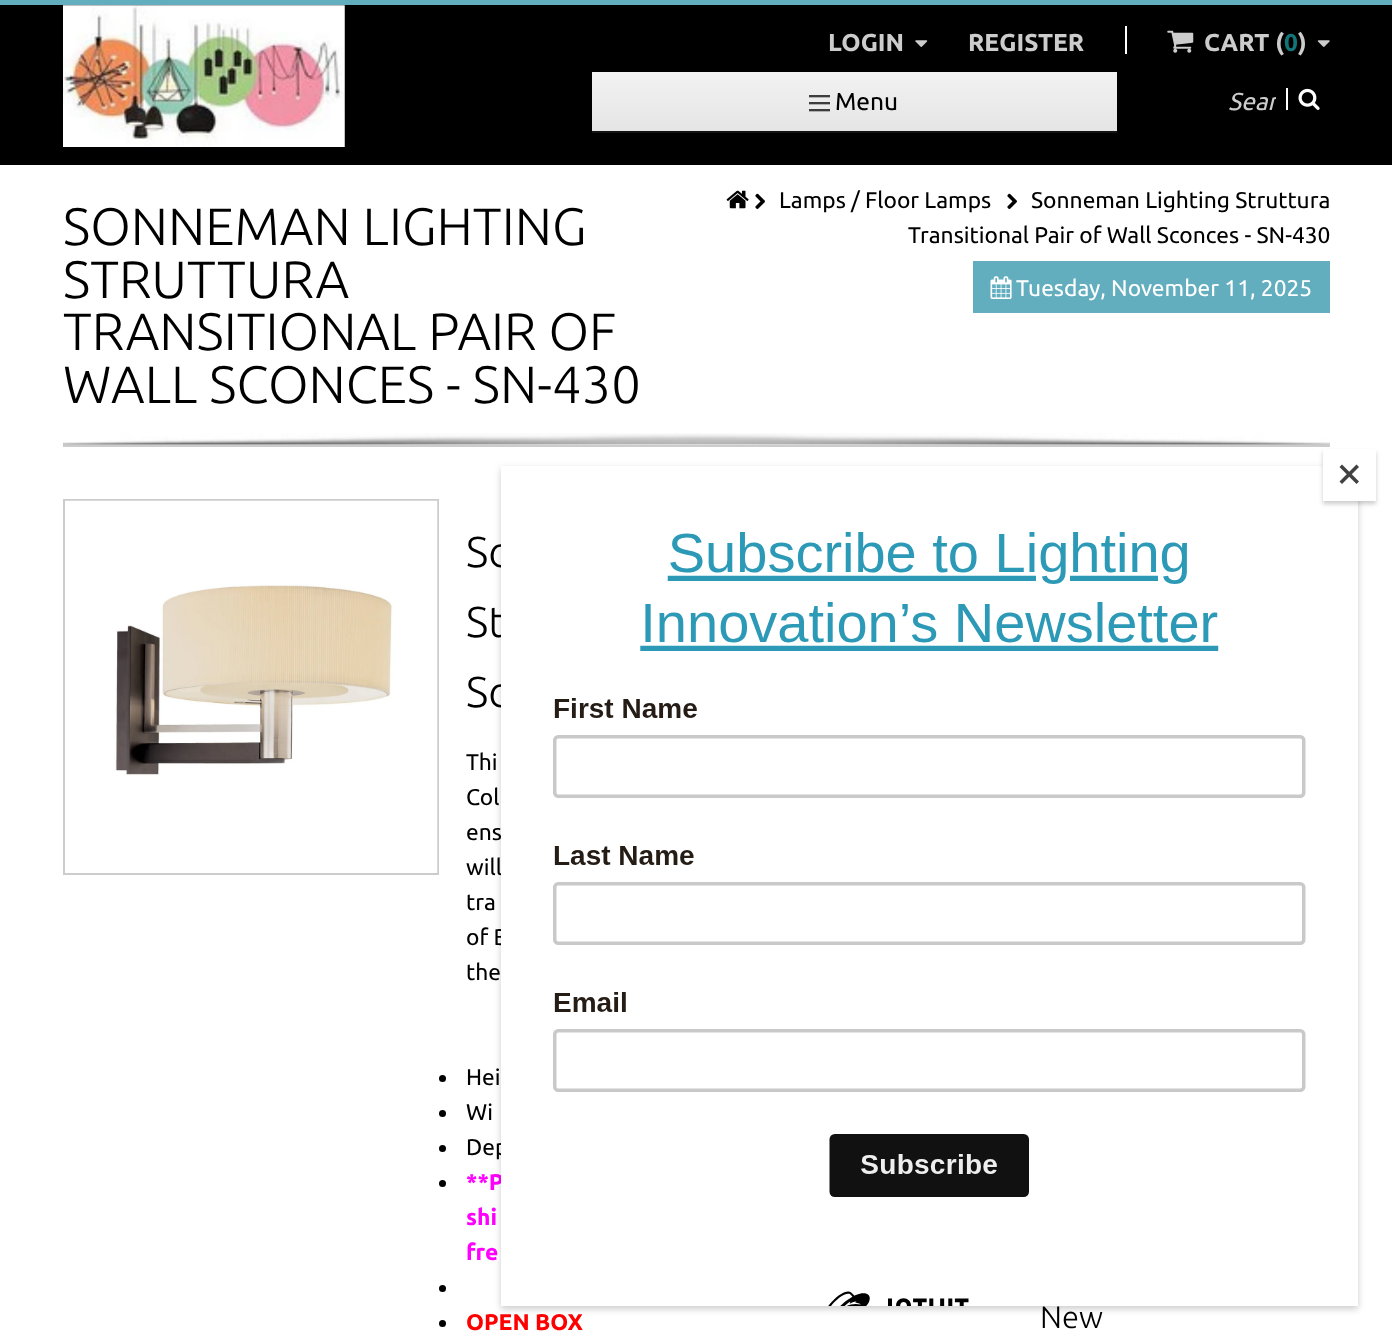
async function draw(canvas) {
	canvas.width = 1392;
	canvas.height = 1339;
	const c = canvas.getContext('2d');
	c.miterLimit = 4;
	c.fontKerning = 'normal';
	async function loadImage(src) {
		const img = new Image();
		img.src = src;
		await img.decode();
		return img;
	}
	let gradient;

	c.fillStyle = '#fff';
	c.fillRect(0, 0, 1392, 1339);
	c.fillStyle = '#000';
	c.fillRect(0, 5, 1392, 160);
	c.fillStyle = '#62aebf';
	c.fillRect(0, 0, 1392, 5);
	c.drawImage(await loadImage('img1.png'), 63, 5, 282, 142);
	c.font = 'bold 24.5px Ubuntu';
	c.fillStyle = '#ccc';
	c.fillText('LOGIN', 828, 51);
	c.drawImage(await loadImage('img2.png'), 915, 40, 13, 7);
	c.fillText('REGISTER', 968, 51);
	c.fillStyle = '#fff';
	c.fillRect(1125, 26, 2, 28);
	c.drawImage(await loadImage('img3.png'), 1167, 30, 27, 23);
	c.fillStyle = '#ccc';
	c.fillText('CART (', 1204, 51);
	c.fillStyle = '#127579';
	c.fillText('0', 1284, 51);
	c.fillStyle = '#ccc';
	c.fillText(')', 1298, 51);
	c.drawImage(await loadImage('img4.png'), 1317, 40, 13, 7);
	c.fillStyle = '#131313';
	c.beginPath();
	c.moveTo(592, 131);
	c.lineTo(592, 133);
	c.lineTo(1117, 133);
	c.lineTo(1117, 74);
	c.lineTo(1116, 74);
	c.lineTo(1116, 131);
	c.closePath();
	c.fill();
	gradient = c.createLinearGradient(854, 72, 854, 131);
	gradient.addColorStop(0, '#f2f2f2');
	gradient.addColorStop(1, '#e5e5e5');
	c.fillStyle = gradient;
	c.fillRect(592, 72, 525, 59);
	c.fillStyle = '#b1b1b1';
	c.beginPath();
	c.moveTo(809, 96);
	c.lineTo(809, 98);
	c.lineTo(830, 98);
	c.lineTo(830, 96);
	c.lineTo(829.5, 96);
	c.closePath();
	c.fill();
	c.fillStyle = '#3d3d3d';
	c.fillRect(809, 95, 21, 2);
	c.fillStyle = '#b0b0b0';
	c.beginPath();
	c.moveTo(809, 103);
	c.lineTo(809, 105);
	c.lineTo(830, 105);
	c.lineTo(830, 103);
	c.lineTo(829.5, 103);
	c.closePath();
	c.fill();
	c.fillStyle = '#3d3d3d';
	c.fillRect(809, 102, 21, 2);
	c.fillStyle = '#afafaf';
	c.beginPath();
	c.moveTo(809, 110);
	c.lineTo(809, 112);
	c.lineTo(830, 112);
	c.lineTo(830, 110);
	c.lineTo(829.5, 110);
	c.closePath();
	c.fill();
	c.fillStyle = '#3d3d3d';
	c.fillRect(809, 109, 21, 2);
	c.font = '24.5px Ubuntu';
	c.fillStyle = '#000';
	c.fillText('Menu', 835, 110);
	c.save();
	c.beginPath();
	c.rect(1229, 88, 47, 28);
	c.clip();
	c.font = 'italic 24.5px Ubuntu';
	c.fillStyle = '#ccc';
	c.fillText('Sear', 1228, 110);
	c.restore();
	c.fillStyle = '#fff';
	c.fillRect(1286, 88, 2, 22);
	c.drawImage(await loadImage('img5.png'), 1298, 88, 22, 22);
	c.fillStyle = '#ccc';
	c.fillRect(63, 445, 1267, 2);
	c.font = '300 52.5px Ubuntu';
	c.fillStyle = '#000';
	for (const [text, x, y] of [
		['SONNEMAN LIGHTING', 63, 245],
		['STRUTTURA', 63, 298],
		['TRANSITIONAL PAIR OF', 63, 350],
		['WALL SCONCES - SN-430', 63, 403],
	]) {
		c.fillText(text, x, y);
	}
	c.drawImage(await loadImage('img6.png'), 726, 190, 23, 19);
	c.drawImage(await loadImage('img7.png'), 755, 193, 10, 16);
	c.font = '22.75px Ubuntu';
	c.fillText('Lamps / Floor Lamps', 779, 208);
	c.drawImage(await loadImage('img8.png'), 1007, 193, 10, 16);
	c.fillText('Sonneman Lighting Struttura', 1031, 208);
	c.fillText('Transitional Pair of Wall Sconces - SN-430', 908, 243);
	c.fillStyle = '#62aebf';
	c.fillRect(973, 261, 357, 52);
	c.drawImage(await loadImage('img9.png'), 990, 276, 22, 23);
	c.fillStyle = '#fff';
	c.fillText('Tuesday, November 11, 2025', 1016, 296);
	c.drawImage(await loadImage('img10.png'), 63, 433, 1267, 12);
	c.strokeStyle = '#ccc';
	c.lineWidth = 2;
	c.strokeRect(64, 500, 374, 374);
	c.drawImage(await loadImage('img11.png'), 65, 500, 373, 373);
	c.font = '300 43px Ubuntu';
	c.fillStyle = '#000';
	for (const [text, x, y] of [
		['So', 466, 567],
		['St', 466, 637],
		['Sc', 466, 707],
	]) {
		c.fillText(text, x, y);
	}
	c.font = '22.75px Ubuntu';
	for (const [text, x, y] of [
		['Thi', 466, 770],
		['Col', 466, 805],
		['ens', 466, 840],
		['will', 466, 875],
		['tra', 466, 910],
		['of B', 466, 945],
		['the', 466, 980],
	]) {
		c.fillText(text, x, y);
	}
	c.beginPath();
	c.arc(442.5, 1078.5, 3.5, 0, 2 * Math.PI);
	c.fill();
	c.fillText('Hei', 466, 1085);
	c.beginPath();
	c.arc(442.5, 1113.5, 3.5, 0, 2 * Math.PI);
	c.fill();
	c.fillText('Wi', 466, 1120);
	c.beginPath();
	c.arc(442.5, 1148.5, 3.5, 0, 2 * Math.PI);
	c.fill();
	c.fillText('Dep', 466, 1155);
	c.beginPath();
	c.arc(442.5, 1183.5, 3.5, 0, 2 * Math.PI);
	c.fill();
	c.font = 'bold 22.75px Ubuntu';
	c.fillStyle = '#f0f';
	for (const [text, x, y] of [
		['**P', 466, 1190],
		['shi', 466, 1225],
		['fre', 466, 1260],
	]) {
		c.fillText(text, x, y);
	}
	c.fillStyle = '#000';
	c.beginPath();
	c.arc(442.5, 1288.5, 3.5, 0, 2 * Math.PI);
	c.fill();
	c.beginPath();
	c.arc(442.5, 1323.5, 3.5, 0, 2 * Math.PI);
	c.fill();
	c.fillStyle = '#f00';
	c.fillText('OPEN BOX', 466, 1330);
	c.font = '300 31px Ubuntu';
	c.fillStyle = '#000';
	c.fillText('New', 1040, 1328);
	c.fillStyle = '#00000033';
	c.filter = 'blur(3.5px)';
	c.beginPath();
	c.rect(501, 469, 857, 840);
	c.fill();
	c.filter = 'none';
	c.fillStyle = '#fff';
	c.fillRect(501, 466, 857, 840);
	c.fillStyle = '#00000033';
	c.filter = 'blur(2px)';
	c.beginPath();
	c.rect(1323, 452, 53, 52);
	c.fill();
	c.filter = 'none';
	c.fillStyle = '#fff';
	c.fillRect(1323, 449, 53, 52);
	c.fillStyle = '#414141';
	c.beginPath();
	c.moveTo(1356.5, 464.5);
	c.lineTo(1359, 467);
	c.lineTo(1342, 484);
	c.lineTo(1339.5, 481.5);
	c.closePath();
	c.fill();
	c.beginPath();
	c.moveTo(1339.5, 467);
	c.lineTo(1342, 464.5);
	c.lineTo(1359, 481.5);
	c.lineTo(1356.5, 484);
	c.closePath();
	c.fill();
	c.drawImage(await loadImage('img12.png'), 553, 532, 753, 774);
}

draw(document.querySelector('canvas'));
